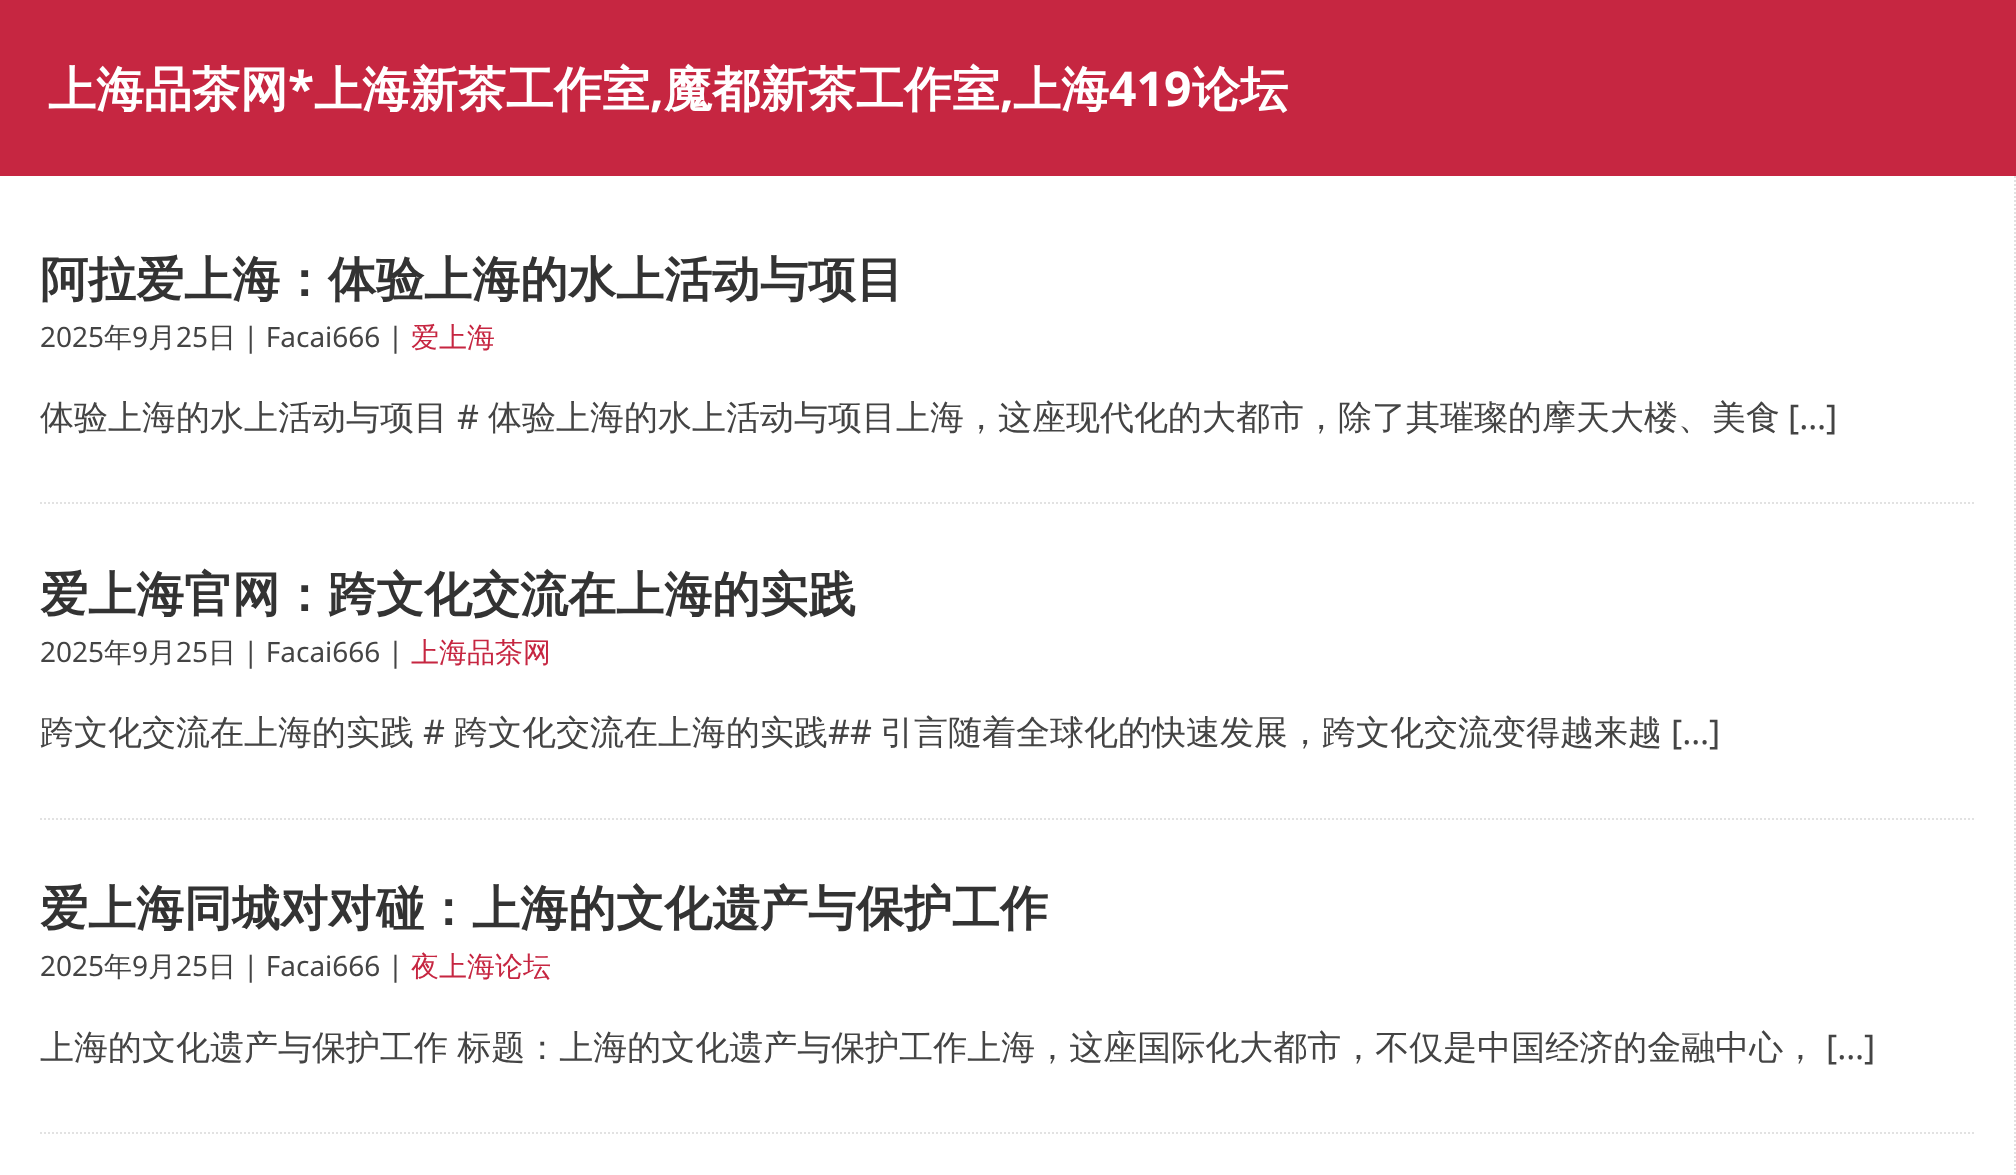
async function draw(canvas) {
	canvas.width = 2016;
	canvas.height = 1175;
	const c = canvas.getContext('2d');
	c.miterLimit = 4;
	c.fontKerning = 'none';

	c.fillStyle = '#fff';
	c.fillRect(0, 0, 2016, 1175);
	c.fillStyle = '#c62641';
	c.fillRect(0, 0, 2016, 176);
	c.font = 'bold 48px WenQuanYi Zen Hei';
	c.fillStyle = '#fff';
	c.fillText('上海品茶网', 48, 106);
	c.font = 'bold 48px Noto Sans';
	c.fillText('*', 288, 106);
	c.font = 'bold 48px WenQuanYi Zen Hei';
	c.fillText('上海新茶工作室', 314, 106);
	c.font = 'bold 48px Noto Sans';
	c.fillText(',', 650, 106);
	c.font = 'bold 48px WenQuanYi Zen Hei';
	c.fillText('魔都新茶工作室', 664, 106);
	c.font = 'bold 48px Noto Sans';
	c.fillText(',', 1000, 106);
	c.font = 'bold 48px WenQuanYi Zen Hei';
	c.fillText('上海', 1013, 106);
	c.font = 'bold 48px Noto Sans';
	c.fillText('419', 1109, 106);
	c.font = 'bold 48px WenQuanYi Zen Hei';
	c.fillText('论坛', 1192, 106);
	c.beginPath();
	c.moveTo(2015, 176);
	c.lineTo(2015, 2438);
	c.strokeStyle = '#e2e2e2';
	c.lineWidth = 2;
	c.setLineDash([2, 2]);
	c.stroke();
	c.beginPath();
	c.moveTo(40, 503);
	c.lineTo(1974, 503);
	c.stroke();
	c.fillStyle = '#333';
	c.fillText('阿拉爱上海：体验上海的水上活动与项目', 40, 296);
	c.font = '28px Noto Sans';
	c.fillStyle = '#444';
	c.fillText('2025', 40, 347);
	c.font = '500 28px WenQuanYi Zen Hei';
	c.fillText('年', 104, 347);
	c.font = '28px Noto Sans';
	c.fillText('9', 132, 347);
	c.font = '500 28px WenQuanYi Zen Hei';
	c.fillText('月', 148, 347);
	c.font = '28px Noto Sans';
	c.fillText('25', 176, 347);
	c.font = '500 28px WenQuanYi Zen Hei';
	c.fillText('日', 208, 347);
	c.font = '28px Noto Sans';
	c.fillText('| Facai666 |', 243, 347);
	c.font = '500 28px WenQuanYi Zen Hei';
	c.fillStyle = '#c62641';
	c.fillText('爱上海', 411, 347);
	c.font = '500 34px WenQuanYi Zen Hei';
	c.fillStyle = '#444';
	c.fillText('体验上海的水上活动与项目', 40, 429);
	c.font = '34px Noto Sans';
	c.fillText('#', 457, 429);
	c.font = '500 34px WenQuanYi Zen Hei';
	c.fillText('体验上海的水上活动与项目上海，这座现代化的大都市，除了其璀璨的摩天大楼、美食', 488, 429);
	c.font = '34px Noto Sans';
	c.fillText('[…]', 1788, 429);
	c.beginPath();
	c.moveTo(40, 819);
	c.lineTo(1974, 819);
	c.stroke();
	c.font = 'bold 48px WenQuanYi Zen Hei';
	c.fillStyle = '#333';
	c.fillText('爱上海官网：跨文化交流在上海的实践', 40, 611);
	c.font = '28px Noto Sans';
	c.fillStyle = '#444';
	c.fillText('2025', 40, 662);
	c.font = '500 28px WenQuanYi Zen Hei';
	c.fillText('年', 104, 662);
	c.font = '28px Noto Sans';
	c.fillText('9', 132, 662);
	c.font = '500 28px WenQuanYi Zen Hei';
	c.fillText('月', 148, 662);
	c.font = '28px Noto Sans';
	c.fillText('25', 176, 662);
	c.font = '500 28px WenQuanYi Zen Hei';
	c.fillText('日', 208, 662);
	c.font = '28px Noto Sans';
	c.fillText('| Facai666 |', 243, 662);
	c.font = '500 28px WenQuanYi Zen Hei';
	c.fillStyle = '#c62641';
	c.fillText('上海品茶网', 411, 662);
	c.font = '500 34px WenQuanYi Zen Hei';
	c.fillStyle = '#444';
	c.fillText('跨文化交流在上海的实践', 40, 744);
	c.font = '34px Noto Sans';
	c.fillText('#', 423, 744);
	c.font = '500 34px WenQuanYi Zen Hei';
	c.fillText('跨文化交流在上海的实践', 454, 744);
	c.font = '34px Noto Sans';
	c.fillText('##', 828, 744);
	c.font = '500 34px WenQuanYi Zen Hei';
	c.fillText('引言随着全球化的快速发展，跨文化交流变得越来越', 880, 744);
	c.font = '34px Noto Sans';
	c.fillText('[…]', 1671, 744);
	c.beginPath();
	c.moveTo(40, 1133);
	c.lineTo(1974, 1133);
	c.stroke();
	c.font = 'bold 48px WenQuanYi Zen Hei';
	c.fillStyle = '#333';
	c.fillText('爱上海同城对对碰：上海的文化遗产与保护工作', 40, 925);
	c.font = '28px Noto Sans';
	c.fillStyle = '#444';
	c.fillText('2025', 40, 976);
	c.font = '500 28px WenQuanYi Zen Hei';
	c.fillText('年', 104, 976);
	c.font = '28px Noto Sans';
	c.fillText('9', 132, 976);
	c.font = '500 28px WenQuanYi Zen Hei';
	c.fillText('月', 148, 976);
	c.font = '28px Noto Sans';
	c.fillText('25', 176, 976);
	c.font = '500 28px WenQuanYi Zen Hei';
	c.fillText('日', 208, 976);
	c.font = '28px Noto Sans';
	c.fillText('| Facai666 |', 243, 976);
	c.font = '500 28px WenQuanYi Zen Hei';
	c.fillStyle = '#c62641';
	c.fillText('夜上海论坛', 411, 976);
	c.wordSpacing = '-1px';
	c.font = '500 34px WenQuanYi Zen Hei';
	c.fillStyle = '#444';
	c.fillText('上海的文化遗产与保护工作 标题：上海的文化遗产与保护工作上海，这座国际化大都市，不仅是中国经济的金融中心，', 40, 1059);
	c.wordSpacing = '0px';
	c.font = '34px Noto Sans';
	c.fillText('[…]', 1826, 1059);
}

draw(document.querySelector('canvas'));
